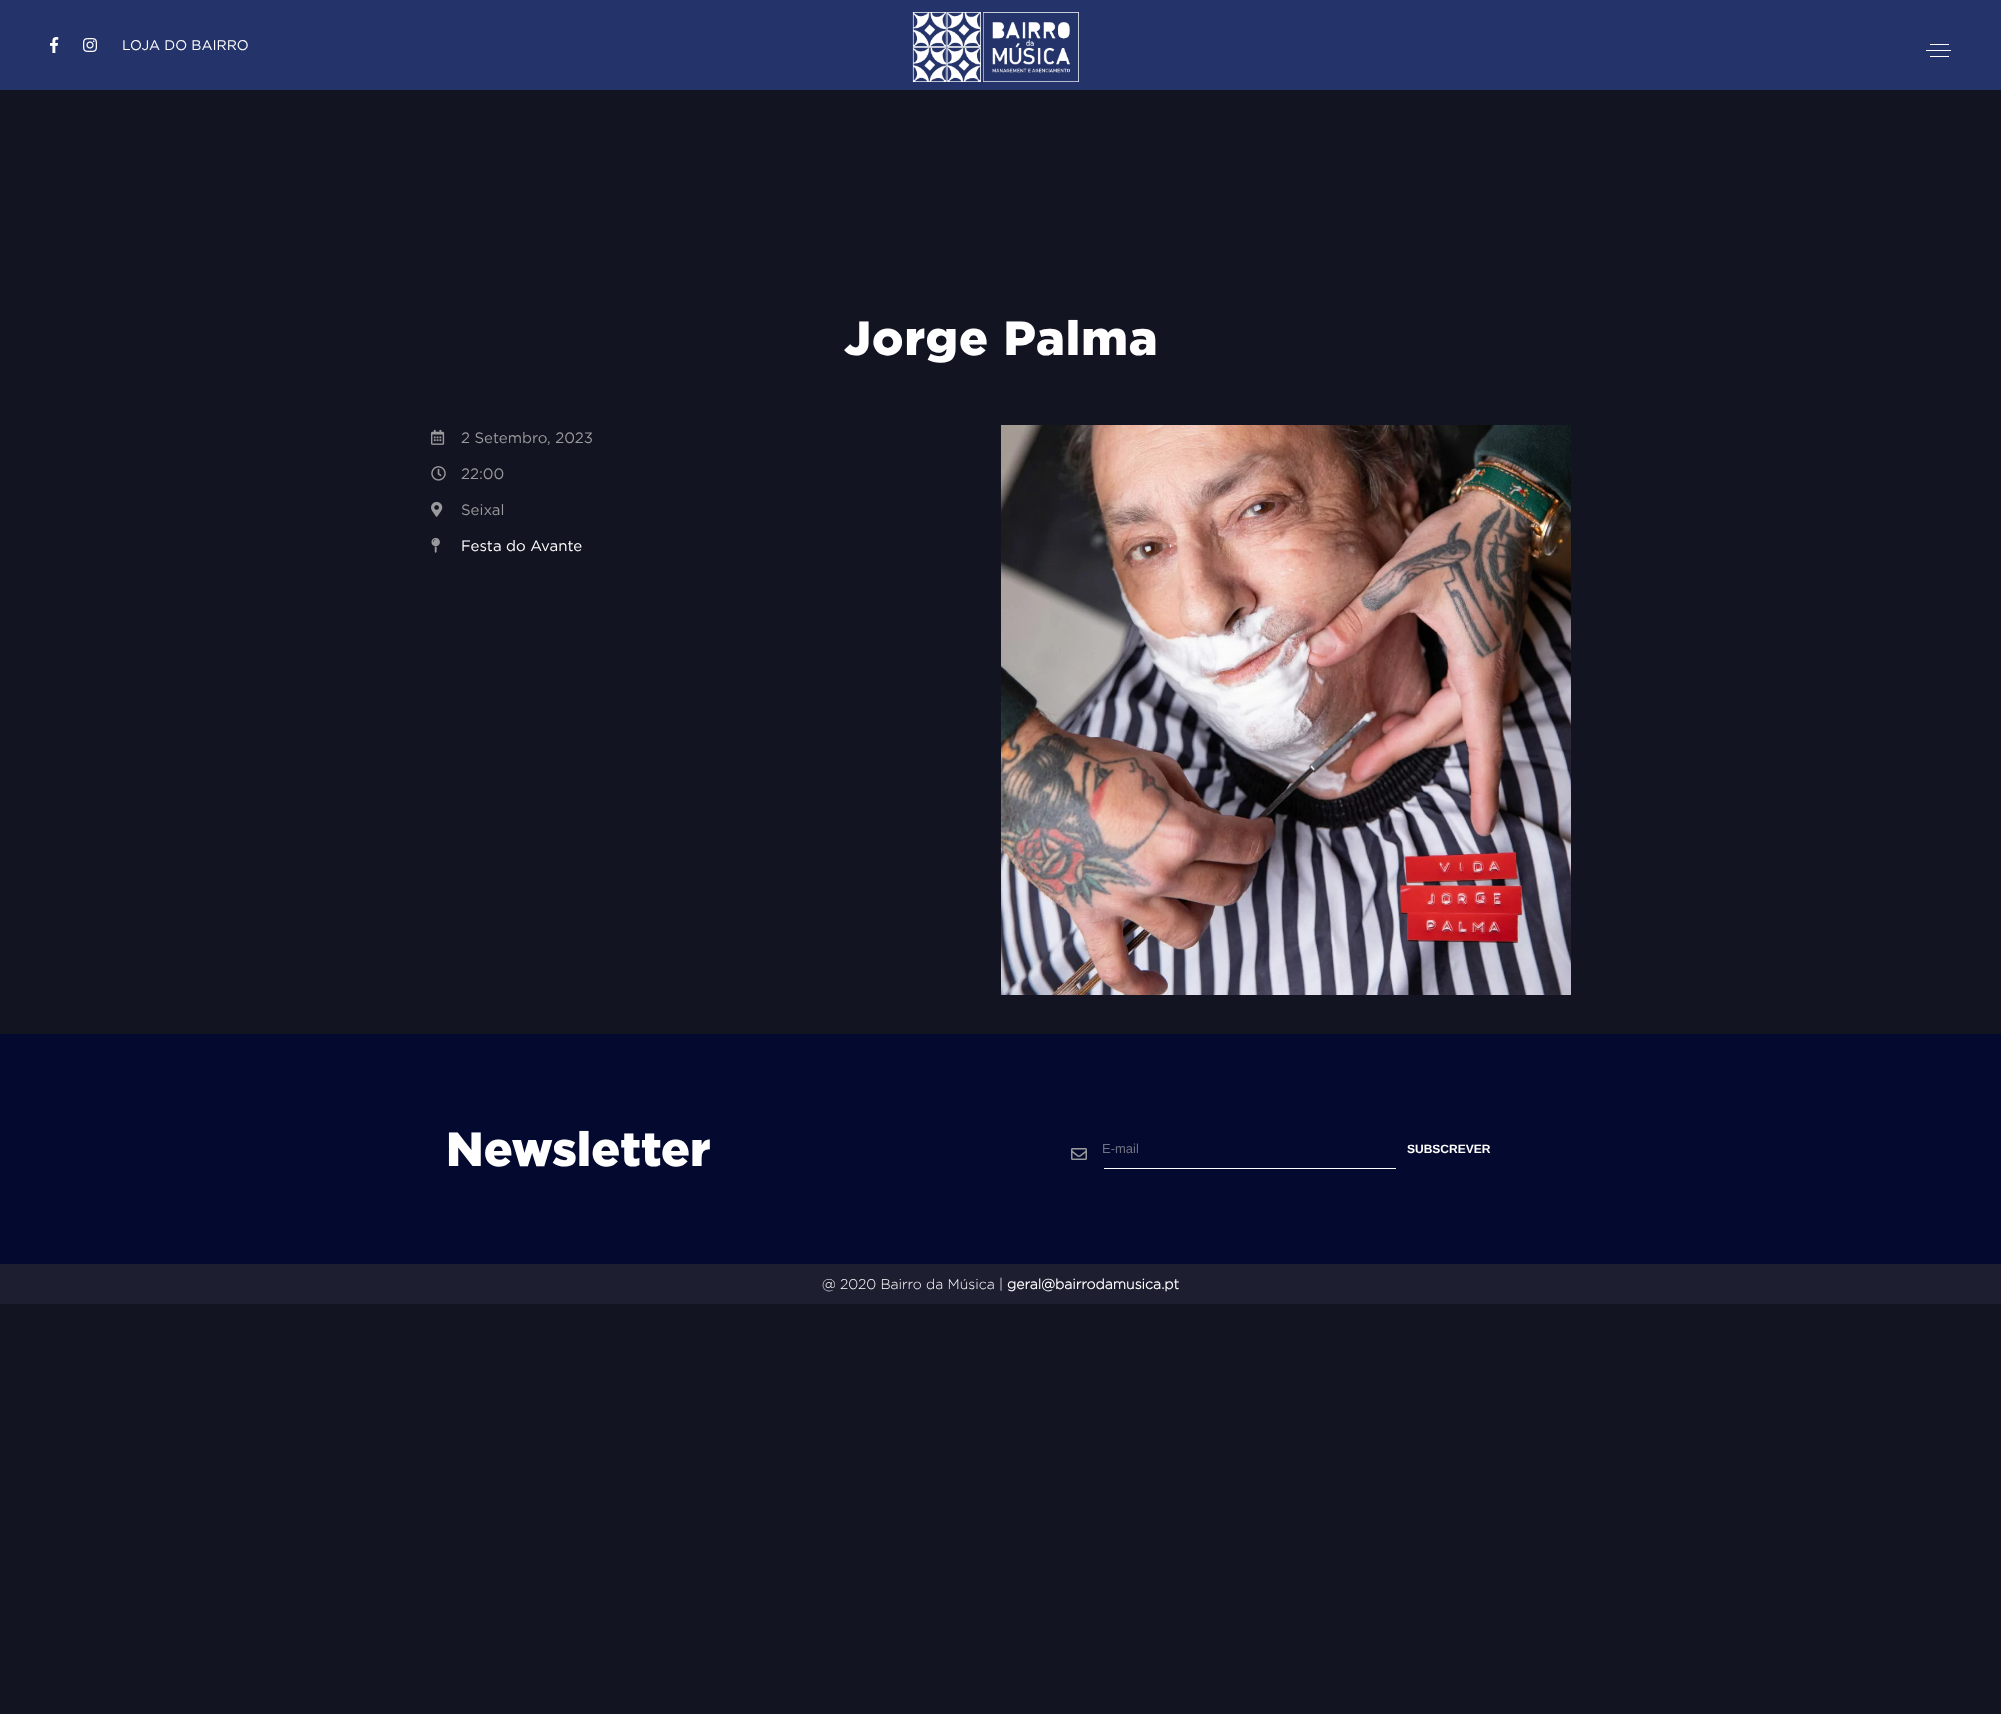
async function draw(canvas) {
	canvas.width = 2001;
	canvas.height = 1714;
	const c = canvas.getContext('2d');
	c.miterLimit = 4;
	c.fontKerning = 'normal';
	async function loadImage(src) {
		const img = new Image();
		img.src = src;
		await img.decode();
		return img;
	}

	c.fillStyle = '#121421';
	c.fillRect(0, 0, 2001, 1714);
	c.fillStyle = '#24336a';
	c.fillRect(0, 0, 2001, 90);
	c.drawImage(await loadImage('img1.png'), 50, 37, 9, 16);
	c.drawImage(await loadImage('img2.png'), 83, 38, 14, 14);
	c.font = '14px Gotham';
	c.fillStyle = '#fff';
	c.fillText('LOJA DO BAIRRO', 122, 50);
	c.drawImage(await loadImage('img3.png'), 912, 12, 167, 70);
	for (const [x, y, w, h, color] of [
		[1930, 44, 19, 1, '#fff'],
		[1926, 50, 25, 1, '#fff'],
		[1930, 56, 19, 1, '#fff'],
	]) {
		c.fillStyle = color;
		c.fillRect(x, y, w, h);
	}
	c.letterSpacing = '1px';
	c.font = '900 48px Gotham';
	c.fillText('Jorge Palma', 844, 355);
	c.drawImage(await loadImage('img4.png'), 431, 429, 14, 16);
	c.letterSpacing = '0px';
	c.font = '15px Gotham';
	c.fillStyle = '#989a9c';
	c.fillText('2 Setembro, 2023', 461, 443);
	c.drawImage(await loadImage('img5.png'), 431, 466, 15, 15);
	c.fillText('22:00', 461, 479);
	c.drawImage(await loadImage('img6.png'), 431, 501, 12, 16);
	c.fillText('Seixal', 461, 515);
	c.drawImage(await loadImage('img7.png'), 431, 537, 9, 16);
	c.fillStyle = '#fff';
	c.fillText('Festa do Avante', 461, 551);
	c.drawImage(await loadImage('img8.png'), 1001, 425, 570, 570);
	c.fillStyle = '#04092f';
	c.fillRect(0, 1034, 2001, 230);
	c.font = '900 48px Gotham';
	c.fillStyle = '#fff';
	c.fillText('Newsletter', 446, 1166);
	c.drawImage(await loadImage('img9.png'), 1071, 1148, 16, 12);
	c.fillRect(1104, 1168, 292, 1);
	c.font = '13px Liberation Sans';
	c.fillStyle = '#707281';
	c.fillText('E-mail', 1102, 1153);
	c.font = 'bold 12px Liberation Sans';
	c.fillStyle = '#fff';
	c.fillText('SUBSCREVER', 1407, 1153);
	c.fillStyle = '#1d1f31';
	c.fillRect(0, 1264, 2001, 40);
	c.font = '300 14px Gotham';
	c.fillStyle = '#fff';
	c.fillText('@ 2020 Bairro da Música |', 822, 1289);
	c.font = 'bold 14px Gotham';
	c.fillText('geral@bairrodamusica.pt', 1007, 1289);
}

draw(document.querySelector('canvas'));
